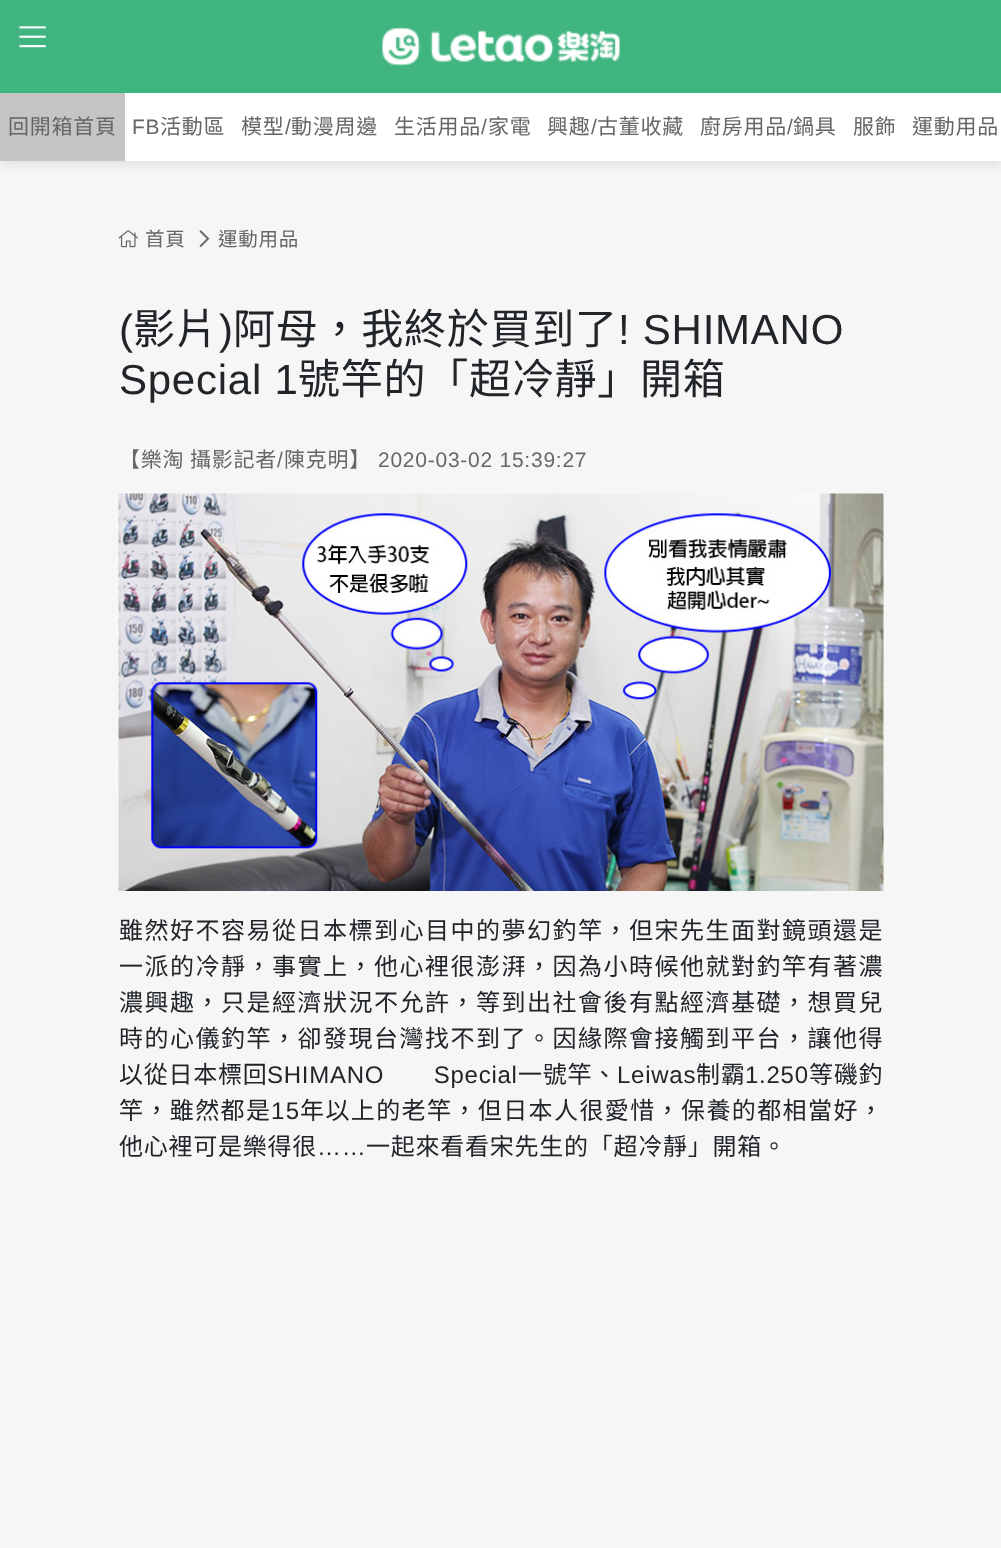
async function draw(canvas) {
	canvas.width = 1001;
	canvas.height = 1548;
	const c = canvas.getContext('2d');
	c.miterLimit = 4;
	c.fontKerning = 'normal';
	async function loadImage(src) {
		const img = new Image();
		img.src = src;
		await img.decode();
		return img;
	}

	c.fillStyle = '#f6f6f6';
	c.fillRect(0, 0, 1001, 1548);
	c.fillStyle = '#0000001a';
	c.filter = 'blur(6px)';
	c.beginPath();
	c.rect(0, 3, 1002, 161);
	c.fill();
	c.filter = 'none';
	c.fillStyle = '#fff';
	c.fillRect(125, 93, 876, 68);
	c.fillStyle = '#41b580';
	c.fillRect(0, 0, 1001, 93);
	c.drawImage(await loadImage('img1.png'), 19, 26, 27, 22);
	c.drawImage(await loadImage('img2.png'), 382, 27, 238, 39);
	c.fillStyle = '#c4c4c4';
	c.fillRect(0, 93, 125, 68);
	c.letterSpacing = '0.75px';
	c.font = '21px Noto Sans CJK TC';
	c.fillStyle = '#666';
	c.fillText('回開箱首頁', 8, 134);
	c.font = '21px Liberation Sans';
	c.fillText('FB', 132, 134);
	c.font = '21px Noto Sans CJK TC';
	c.fillText('活動區', 160, 134);
	c.fillText('模型', 241, 134);
	c.font = '21px Liberation Sans';
	c.fillText('/', 285, 134);
	c.font = '21px Noto Sans CJK TC';
	c.fillText('動漫周邊', 291, 134);
	c.fillText('生活用品', 394, 134);
	c.font = '21px Liberation Sans';
	c.fillText('/', 481, 134);
	c.font = '21px Noto Sans CJK TC';
	c.fillText('家電', 488, 134);
	c.fillText('興趣', 547, 134);
	c.font = '21px Liberation Sans';
	c.fillText('/', 591, 134);
	c.font = '21px Noto Sans CJK TC';
	c.fillText('古董收藏', 597, 134);
	c.fillText('廚房用品', 700, 134);
	c.font = '21px Liberation Sans';
	c.fillText('/', 787, 134);
	c.font = '21px Noto Sans CJK TC';
	for (const [text, x, y] of [
		['鍋具', 793, 134],
		['服飾', 853, 134],
		['運動用品', 912, 134],
	]) {
		c.fillText(text, x, y);
	}
	c.drawImage(await loadImage('img3.png'), 118, 230, 20, 18);
	c.font = '19.5px Noto Sans CJK TC';
	c.fillText('首頁', 145, 246);
	c.drawImage(await loadImage('img4.png'), 199, 230, 11, 18);
	c.fillText('運動用品', 218, 246);
	c.font = '42px Liberation Sans';
	c.fillStyle = '#212529';
	c.fillText('(', 119, 344);
	c.font = '42px Noto Sans CJK TC';
	c.fillText('影片', 133, 344);
	c.font = '42px Liberation Sans';
	c.fillText(')', 219, 344);
	c.font = '42px Noto Sans CJK TC';
	c.fillText('阿母，我終於買到了', 233, 344);
	c.font = '42px Liberation Sans';
	c.fillText('! SHIMANO', 618, 344);
	c.fillText('Special 1', 119, 394);
	c.font = '42px Noto Sans CJK TC';
	c.fillText('號竿的「超冷靜」開箱', 298, 394);
	c.font = '21px Noto Sans CJK TC';
	c.fillStyle = '#666';
	c.fillText('【樂淘', 119, 467);
	c.fillText('攝影記者', 190, 467);
	c.font = '21px Liberation Sans';
	c.fillText('/', 277, 467);
	c.font = '21px Noto Sans CJK TC';
	c.fillText('陳克明】', 284, 467);
	c.font = '21px Liberation Sans';
	c.fillText('2020-03-02 15:39:27', 378, 467);
	c.drawImage(await loadImage('img5.png'), 118, 493, 766, 398);
	c.letterSpacing = '1.5px';
	c.font = '24px Noto Sans CJK TC';
	c.fillStyle = '#212529';
	for (const [text, x, y] of [
		['雖然好不容易從日本標到心目中的夢幻釣竿，但宋先生面對鏡頭還是', 119, 939],
		['一派的冷靜，事實上，他心裡很澎湃，因為小時候他就對釣竿有著濃', 119, 975],
		['濃興趣，只是經濟狀況不允許，等到出社會後有點經濟基礎，想買兒', 119, 1011],
		['時的心儀釣竿，卻發現台灣找不到了。因緣際會接觸到平台，讓他得', 119, 1047],
	]) {
		c.fillText(text, x, y);
	}
	c.letterSpacing = '0.75px';
	c.fillText('以從日本標回', 119, 1083);
	c.wordSpacing = '42px';
	c.font = '24px Liberation Sans';
	c.fillText('SHIMANO Special', 267, 1083);
	c.wordSpacing = '0px';
	c.font = '24px Noto Sans CJK TC';
	c.fillText('一號竿、', 518, 1083);
	c.font = '24px Liberation Sans';
	c.fillText('Leiwas', 617, 1083);
	c.font = '24px Noto Sans CJK TC';
	c.fillText('制霸', 696, 1083);
	c.font = '24px Liberation Sans';
	c.fillText('1.250', 745, 1083);
	c.font = '24px Noto Sans CJK TC';
	c.fillText('等磯釣', 809, 1083);
	c.letterSpacing = '1.4px';
	c.fillText('竿，雖然都是', 119, 1119);
	c.font = '24px Liberation Sans';
	c.fillText('15', 271, 1119);
	c.font = '24px Noto Sans CJK TC';
	c.fillText('年以上的老竿，但日本人很愛惜，保養的都相當好，', 300, 1119);
	c.letterSpacing = '0.75px';
	c.fillText('他心裡可是樂得很', 119, 1155);
	c.font = '24px Liberation Sans';
	c.fillText('……', 317, 1155);
	c.font = '24px Noto Sans CJK TC';
	c.fillText('一起來看看宋先生的「超冷靜」開箱。', 366, 1155);
}

draw(document.querySelector('canvas'));
